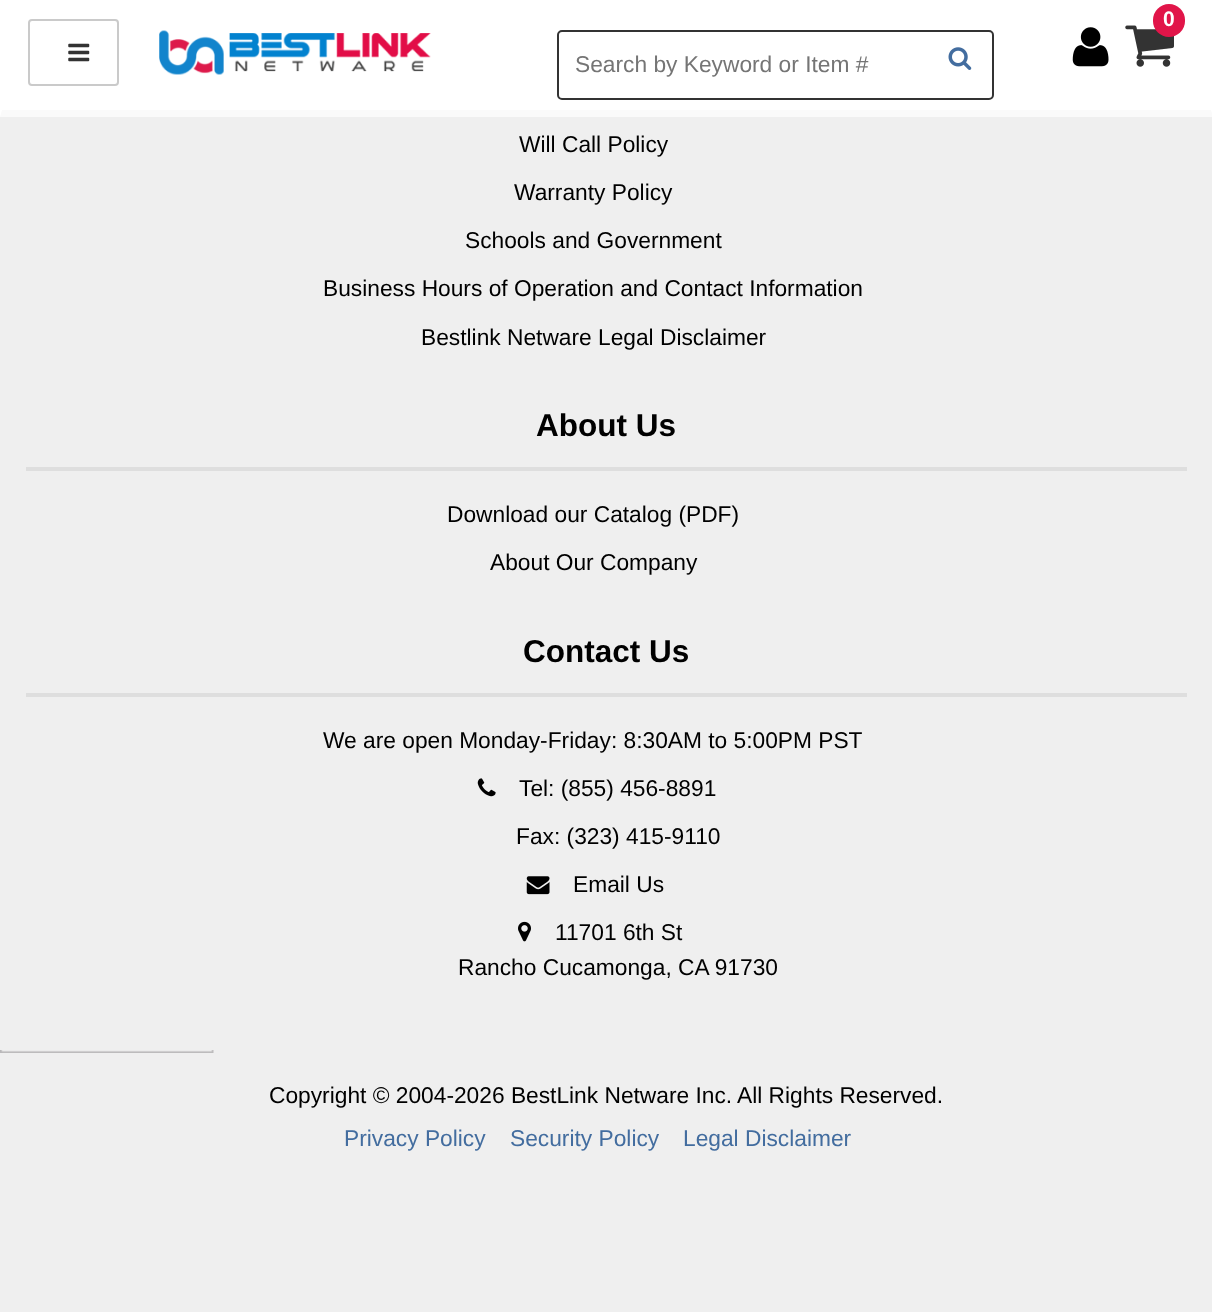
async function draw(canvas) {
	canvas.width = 1212;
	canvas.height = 1312;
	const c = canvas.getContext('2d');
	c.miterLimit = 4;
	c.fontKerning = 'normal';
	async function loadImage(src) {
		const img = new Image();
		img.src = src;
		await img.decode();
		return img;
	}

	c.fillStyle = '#efefef';
	c.fillRect(0, 0, 1212, 1312);
	c.fillStyle = '#fff';
	c.fillRect(0, 0, 1212, 117);
	c.fillStyle = '#fafafa';
	c.beginPath();
	c.moveTo(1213, 117);
	c.lineTo(0, 117);
	c.lineTo(2, 110);
	c.lineTo(1211, 110);
	c.closePath();
	c.fill();
	c.beginPath();
	c.roundRect(29, 20, 89, 65, 3);
	c.strokeStyle = '#cacaca';
	c.lineWidth = 2;
	c.stroke();
	c.drawImage(await loadImage('img1.png'), 68, 43, 22, 19);
	c.drawImage(await loadImage('img2.png'), 159, 30, 272, 45);
	c.drawImage(await loadImage('img3.png'), 1125, 25, 49, 42);
	c.fillStyle = '#e11549';
	c.beginPath();
	c.roundRect(1153, 4, 32, 33, 16);
	c.fill();
	c.font = 'bold 21px Liberation Sans';
	c.fillStyle = '#fff';
	c.fillText('0', 1163, 26);
	c.drawImage(await loadImage('img4.png'), 1072, 27, 37, 40);
	c.beginPath();
	c.roundRect(558, 31, 435, 68, 4);
	c.strokeStyle = '#333';
	c.stroke();
	c.font = '22.75px Liberation Sans';
	c.fillStyle = '#757575';
	c.fillText('Search by Keyword or Item #', 575, 72);
	c.drawImage(await loadImage('img5.png'), 948, 47, 24, 23);
	c.drawImage(await loadImage('img6.png'), 0, 1050, 214, 3);
	c.fillStyle = '#000';
	for (const [text, x, y] of [
		['Will Call Policy', 519, 152],
		['Warranty Policy', 514, 200],
		['Schools and Government', 465, 248],
		['Business Hours of Operation and Contact Information', 323, 296],
		['Bestlink Netware Legal Disclaimer', 421, 345],
	]) {
		c.fillText(text, x, y);
	}
	c.fillStyle = '#dedede';
	c.fillRect(26, 467, 1161, 4);
	c.font = 'bold 31.5px Liberation Sans';
	c.fillStyle = '#000';
	c.fillText('About Us', 536, 436);
	c.font = '22.75px Liberation Sans';
	c.fillText('Download our Catalog (PDF)', 447, 522);
	c.fillText('About Our Company', 490, 570);
	c.fillStyle = '#dedede';
	c.fillRect(26, 693, 1161, 4);
	c.font = 'bold 31.5px Liberation Sans';
	c.fillStyle = '#000';
	c.fillText('Contact Us', 523, 662);
	c.font = '22.75px Liberation Sans';
	c.fillText('We are open Monday-Friday: 8:30AM to 5:00PM PST', 323, 748);
	c.drawImage(await loadImage('img7.png'), 477, 778, 19, 19);
	c.fillText('Tel: (855) 456-8891', 519, 796);
	c.fillText('Fax: (323) 415-9110', 516, 844);
	c.drawImage(await loadImage('img8.png'), 526, 876, 24, 19);
	c.fillText('Email Us', 573, 892);
	c.drawImage(await loadImage('img9.png'), 518, 921, 13, 21);
	for (const [text, x, y] of [
		['11701 6th St', 555, 940],
		['Rancho Cucamonga, CA 91730', 458, 975],
		['Copyright © 2004-2026 BestLink Netware Inc.', 269, 1103],
		['All Rights Reserved.', 737, 1103],
	]) {
		c.fillText(text, x, y);
	}
	c.fillStyle = '#436d9f';
	for (const [text, x, y] of [
		['Privacy Policy', 344, 1146],
		['Security Policy', 510, 1146],
		['Legal Disclaimer', 683, 1146],
	]) {
		c.fillText(text, x, y);
	}
}

draw(document.querySelector('canvas'));
